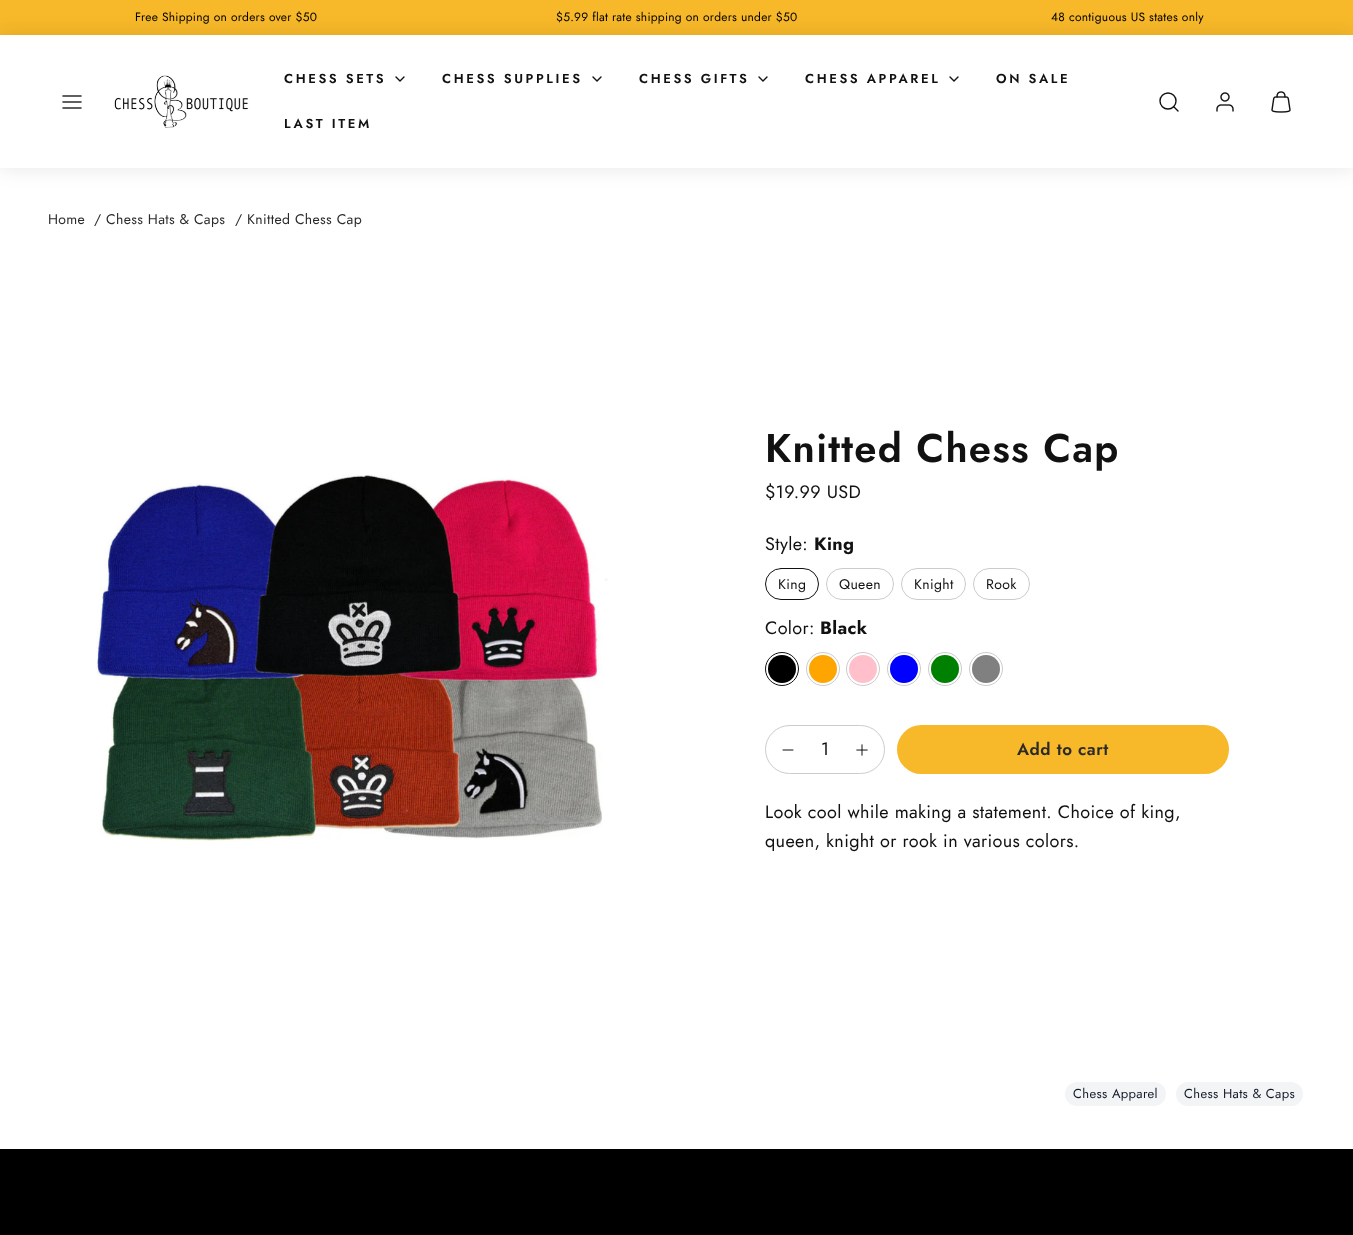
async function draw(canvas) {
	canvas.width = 1353;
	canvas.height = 1235;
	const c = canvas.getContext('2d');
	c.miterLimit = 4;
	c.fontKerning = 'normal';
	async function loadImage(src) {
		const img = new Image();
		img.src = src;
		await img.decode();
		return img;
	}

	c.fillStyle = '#f7b829';
	c.fillRect(0, 0, 1353, 1235);
	c.letterSpacing = '0.25px';
	c.font = '12px Jost';
	c.fillStyle = '#000';
	for (const [text, x, y] of [
		['Free Shipping on orders over $50', 135, 21],
		['$5.99 flat rate shipping on orders under $50', 556, 21],
		['48 contiguous US states only', 1051, 21],
	]) {
		c.fillText(text, x, y);
	}
	c.fillStyle = '#fff';
	c.fillRect(0, 168, 1353, 981);
	c.fillStyle = '#0000001a';
	c.filter = 'blur(10px)';
	c.beginPath();
	c.rect(0, 35, 1353, 133);
	c.fill();
	c.filter = 'none';
	c.fillStyle = '#fff';
	c.fillRect(0, 35, 1353, 133);
	c.drawImage(await loadImage('img1.png'), 62, 95, 20, 14);
	c.drawImage(await loadImage('img2.png'), 114, 75, 135, 53);
	c.letterSpacing = '2.6px';
	c.font = '600 13px Jost';
	c.fillStyle = '#111';
	c.fillText('CHESS SETS', 284, 83);
	c.beginPath();
	c.moveTo(396, 77);
	c.lineTo(400, 81);
	c.lineTo(404, 77);
	c.strokeStyle = '#111';
	c.lineWidth = 1.4;
	c.lineCap = 'round';
	c.lineJoin = 'round';
	c.stroke();
	c.fillText('CHESS SUPPLIES', 442, 83);
	c.beginPath();
	c.moveTo(593, 77);
	c.lineTo(597, 81);
	c.lineTo(601, 77);
	c.stroke();
	c.fillText('CHESS GIFTS', 639, 83);
	c.beginPath();
	c.moveTo(759, 77);
	c.lineTo(763, 81);
	c.lineTo(767, 77);
	c.stroke();
	c.fillText('CHESS APPAREL', 805, 83);
	c.beginPath();
	c.moveTo(950, 77);
	c.lineTo(954, 81);
	c.lineTo(958, 77);
	c.stroke();
	c.fillText('ON SALE', 996, 83);
	c.fillText('LAST ITEM', 284, 128);
	c.beginPath();
	c.arc(1168, 101, 8, 0, 2 * Math.PI);
	c.stroke();
	c.beginPath();
	c.moveTo(1178, 111);
	c.lineTo(1173.5, 106.5);
	c.stroke();
	c.drawImage(await loadImage('img3.png'), 1216, 92, 18, 20);
	c.drawImage(await loadImage('img4.png'), 1271, 91, 20, 22);
	c.letterSpacing = '0.35px';
	c.font = '14px Jost';
	c.fillStyle = '#2a2a2a';
	for (const [text, x, y] of [
		['Home', 48, 224],
		['/ Chess Hats & Caps', 94, 224],
		['/ Knitted Chess Cap', 235, 224],
	]) {
		c.fillText(text, x, y);
	}
	c.drawImage(await loadImage('img5.png'), 96, 474, 512, 367);
	c.letterSpacing = '1.25px';
	c.font = '600 40px Jost';
	c.fillStyle = '#111';
	c.fillText('Knitted Chess Cap', 765, 462);
	c.letterSpacing = '0.35px';
	c.font = '18px Jost';
	c.fillText('$19.99 USD', 765, 498);
	c.fillText('Style:', 765, 550);
	c.font = 'bold 18px Jost';
	c.fillText('King', 814, 550);
	c.beginPath();
	c.roundRect(765.5, 568.5, 53, 31, 15.5);
	c.lineWidth = 1;
	c.lineJoin = 'miter';
	c.stroke();
	c.font = '14px Jost';
	c.fillText('King', 778, 589);
	c.beginPath();
	c.roundRect(826.5, 568.5, 67, 31, 15.5);
	c.strokeStyle = '#ccc';
	c.stroke();
	c.fillText('Queen', 839, 589);
	c.beginPath();
	c.roundRect(901.5, 568.5, 64, 31, 15.5);
	c.stroke();
	c.fillText('Knight', 914, 589);
	c.beginPath();
	c.roundRect(973.5, 568.5, 56, 31, 15.5);
	c.stroke();
	c.fillText('Rook', 986, 589);
	c.font = '18px Jost';
	c.fillText('Color:', 765, 634);
	c.font = 'bold 18px Jost';
	c.fillText('Black', 820, 634);
	c.beginPath();
	c.arc(782, 669, 16.5, 0, 2 * Math.PI);
	c.strokeStyle = '#111';
	c.stroke();
	c.fillStyle = '#000';
	c.beginPath();
	c.arc(782, 669, 14, 0, 2 * Math.PI);
	c.fill();
	c.beginPath();
	c.arc(823, 669, 16.5, 0, 2 * Math.PI);
	c.strokeStyle = '#ccc';
	c.stroke();
	c.fillStyle = '#ffa500';
	c.beginPath();
	c.arc(823, 669, 14, 0, 2 * Math.PI);
	c.fill();
	c.beginPath();
	c.arc(863, 669, 16.5, 0, 2 * Math.PI);
	c.stroke();
	c.fillStyle = '#ffc0cb';
	c.beginPath();
	c.arc(863, 669, 14, 0, 2 * Math.PI);
	c.fill();
	c.beginPath();
	c.arc(904, 669, 16.5, 0, 2 * Math.PI);
	c.stroke();
	c.fillStyle = '#00f';
	c.beginPath();
	c.arc(904, 669, 14, 0, 2 * Math.PI);
	c.fill();
	c.beginPath();
	c.arc(945, 669, 16.5, 0, 2 * Math.PI);
	c.stroke();
	c.fillStyle = '#008000';
	c.beginPath();
	c.arc(945, 669, 14, 0, 2 * Math.PI);
	c.fill();
	c.beginPath();
	c.arc(986, 669, 16.5, 0, 2 * Math.PI);
	c.stroke();
	c.fillStyle = '#808080';
	c.beginPath();
	c.arc(986, 669, 14, 0, 2 * Math.PI);
	c.fill();
	c.beginPath();
	c.roundRect(765.5, 725.5, 119, 48, 24);
	c.stroke();
	c.beginPath();
	c.moveTo(783, 750);
	c.lineTo(793, 750);
	c.strokeStyle = '#111';
	c.lineJoin = 'round';
	c.stroke();
	c.font = '18px Jost';
	c.fillStyle = '#111';
	c.fillText('1', 821, 755);
	c.drawImage(await loadImage('img6.png'), 856, 744, 12, 12);
	c.fillStyle = '#f7b829';
	c.beginPath();
	c.roundRect(897, 725, 332, 49, 24.5);
	c.fill();
	c.letterSpacing = '0.5px';
	c.font = '600 17px Jost';
	c.fillStyle = '#2a2a2a';
	c.fillText('Add to cart', 1017, 755);
	c.letterSpacing = '0.35px';
	c.font = '18px Jost';
	c.fillStyle = '#111';
	c.fillText('Look cool while making a statement. Choice of king,', 765, 818);
	c.fillText('queen, knight or rook in various colors.', 765, 847);
	c.fillStyle = '#f3f4f6';
	c.beginPath();
	c.roundRect(1065, 1082, 101, 24, 12);
	c.fill();
	c.font = '13px Jost';
	c.fillStyle = '#111827';
	c.fillText('Chess Apparel', 1073, 1098);
	c.fillStyle = '#f3f4f6';
	c.beginPath();
	c.roundRect(1176, 1082, 127, 24, 12);
	c.fill();
	c.fillStyle = '#111827';
	c.fillText('Chess Hats & Caps', 1184, 1098);
	c.fillStyle = '#000';
	c.fillRect(0, 1149, 1353, 86);
}

draw(document.querySelector('canvas'));
